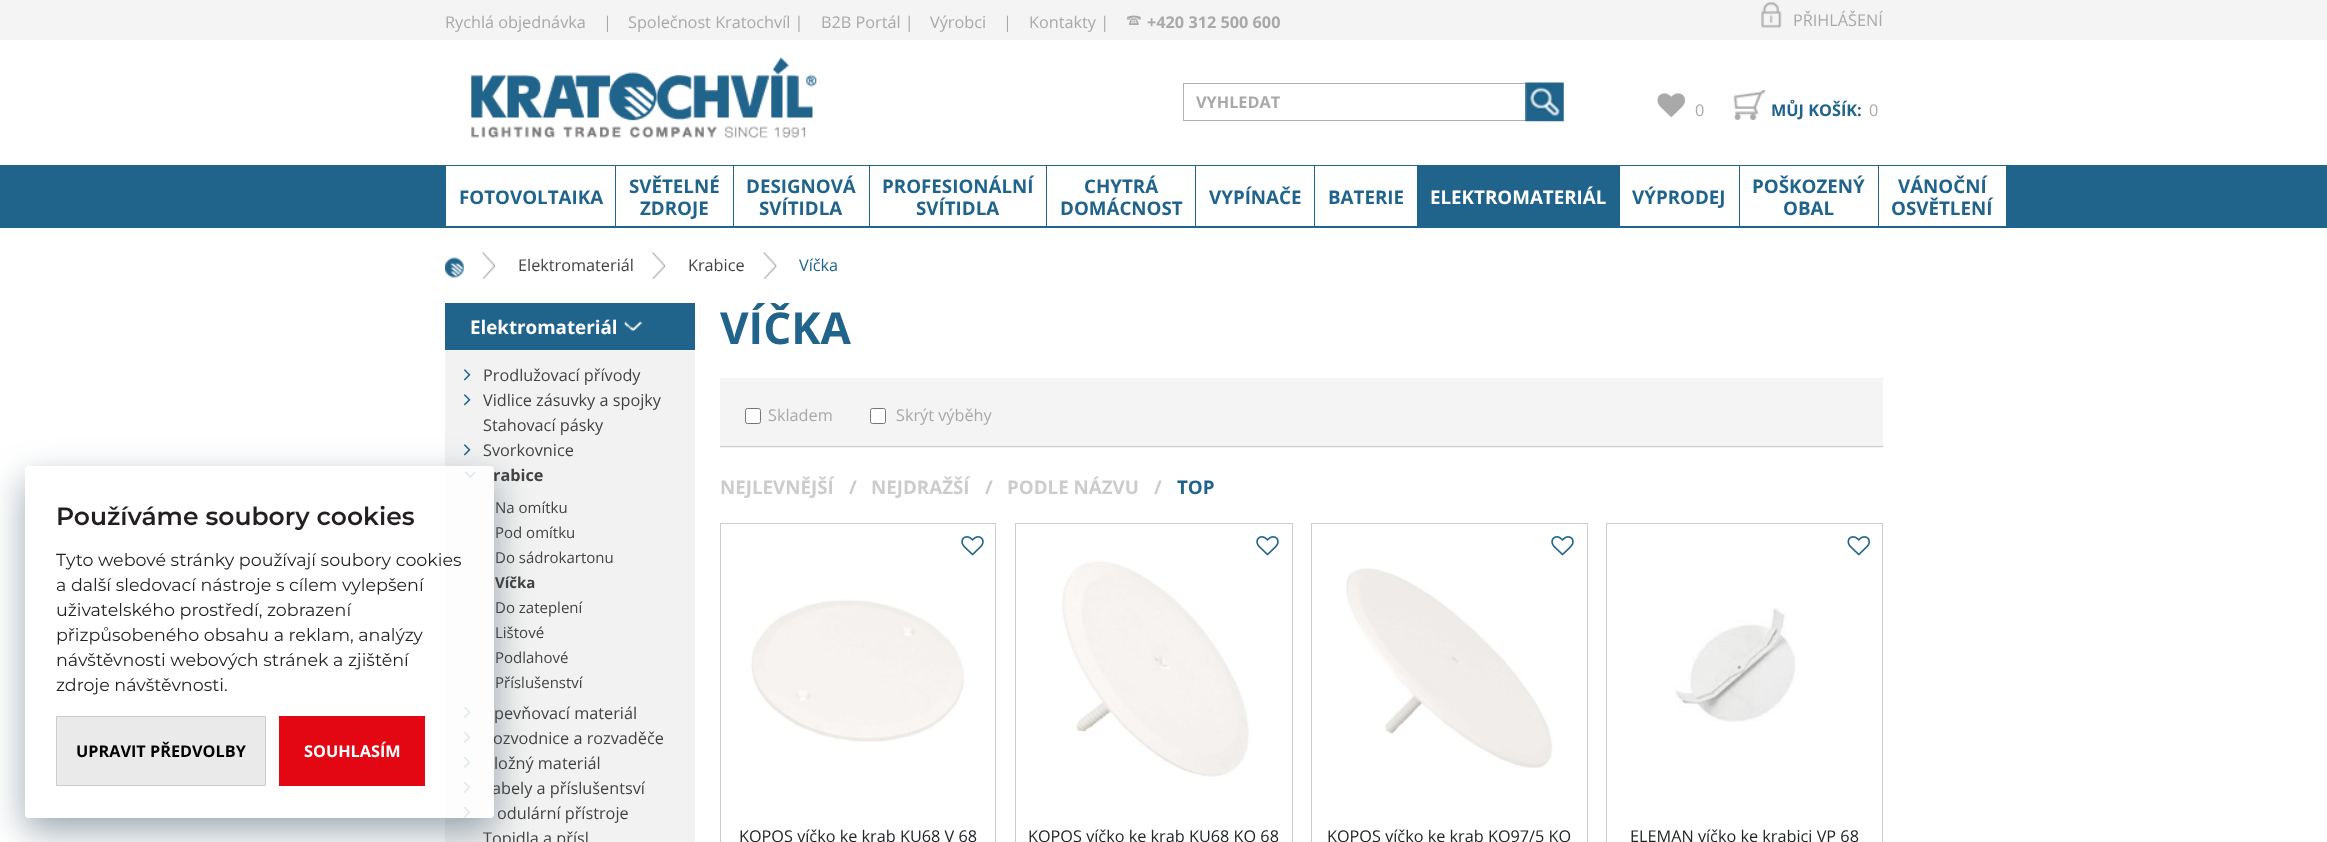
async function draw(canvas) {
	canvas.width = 2327;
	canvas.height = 842;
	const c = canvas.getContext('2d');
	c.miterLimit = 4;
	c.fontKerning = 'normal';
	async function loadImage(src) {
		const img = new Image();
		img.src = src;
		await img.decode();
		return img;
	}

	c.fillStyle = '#fff';
	c.fillRect(0, 0, 2327, 842);
	c.fillStyle = '#f4f4f4';
	c.fillRect(0, 0, 2327, 40);
	c.font = '16.25px Open Sans';
	c.fillStyle = '#a9a9a9';
	for (const [text, x, y] of [
		['Rychlá objednávka', 445, 28],
		['|', 603, 28],
		['Společnost Kratochvíl |', 628, 28],
		['B2B Portál |', 821, 28],
		['Výrobci', 930, 28],
		['|', 1003, 28],
		['Kontakty |', 1029, 28],
	]) {
		c.fillText(text, x, y);
	}
	c.font = '22px FreeSerif';
	c.fillText('🕿', 1126, 28);
	c.font = 'bold 16.25px Open Sans';
	c.fillText('+420 312 500 600', 1147, 28);
	c.drawImage(await loadImage('img1.png'), 1761, 2, 21, 26);
	c.font = '16.25px Open Sans';
	c.fillText('PŘIHLÁŠENÍ', 1793, 26);
	c.drawImage(await loadImage('img2.png'), 471, 57, 346, 81);
	for (const [x, y, w, h, color] of [
		[1183, 83, 343, 1, '#afafaf'],
		[1183, 120, 343, 1, '#afafaf'],
		[1183, 83, 1, 38, '#afafaf'],
	]) {
		c.fillStyle = color;
		c.fillRect(x, y, w, h);
	}
	c.font = 'bold 16.25px Open Sans';
	c.fillStyle = '#a9a9a9';
	c.fillText('VYHLEDAT', 1196, 108);
	c.drawImage(await loadImage('img3.png'), 1525, 82, 39, 40);
	c.drawImage(await loadImage('img4.png'), 1657, 93, 28, 24);
	c.font = '16.25px Open Sans';
	c.fillText('0', 1695, 116);
	c.drawImage(await loadImage('img5.png'), 1733, 90, 32, 30);
	c.font = 'bold 16.25px Open Sans';
	c.fillStyle = '#20648b';
	c.fillText('MŮJ KOŠÍK:', 1771, 116);
	c.font = '16.25px Open Sans';
	c.fillStyle = '#a9a9a9';
	c.fillText('0', 1869, 116);
	c.fillStyle = '#20648b';
	c.fillRect(0, 165, 2327, 63);
	c.fillStyle = '#fff';
	c.fillRect(446, 166, 169, 60);
	c.font = 'bold 18.75px Open Sans';
	c.fillStyle = '#20648b';
	c.fillText('FOTOVOLTAIKA', 459, 204);
	c.fillStyle = '#fff';
	c.fillRect(616, 166, 117, 60);
	c.fillStyle = '#20648b';
	c.fillText('SVĚTELNÉ', 629, 193);
	c.fillText('ZDROJE', 640, 215);
	c.fillStyle = '#fff';
	c.fillRect(734, 166, 135, 60);
	c.fillStyle = '#20648b';
	c.fillText('DESIGNOVÁ', 746, 193);
	c.fillText('SVÍTIDLA', 759, 215);
	c.fillStyle = '#fff';
	c.fillRect(870, 166, 176, 60);
	c.fillStyle = '#20648b';
	c.fillText('PROFESIONÁLNÍ', 882, 193);
	c.fillText('SVÍTIDLA', 916, 215);
	c.fillStyle = '#fff';
	c.fillRect(1047, 166, 148, 60);
	c.fillStyle = '#20648b';
	c.fillText('CHYTRÁ', 1084, 193);
	c.fillText('DOMÁCNOST', 1060, 215);
	c.fillStyle = '#fff';
	c.fillRect(1196, 166, 118, 60);
	c.fillStyle = '#20648b';
	c.fillText('VYPÍNAČE', 1209, 204);
	c.fillStyle = '#fff';
	c.fillRect(1315, 166, 102, 60);
	c.fillStyle = '#20648b';
	c.fillText('BATERIE', 1328, 204);
	c.fillStyle = '#fff';
	c.fillText('ELEKTROMATERIÁL', 1430, 204);
	c.fillRect(1620, 166, 119, 60);
	c.fillStyle = '#20648b';
	c.fillText('VÝPRODEJ', 1632, 204);
	c.fillStyle = '#fff';
	c.fillRect(1740, 166, 138, 60);
	c.fillStyle = '#20648b';
	c.fillText('POŠKOZENÝ', 1752, 193);
	c.fillText('OBAL', 1783, 215);
	c.fillStyle = '#fff';
	c.fillRect(1879, 166, 127, 60);
	c.fillStyle = '#20648b';
	c.fillText('VÁNOČNÍ', 1898, 193);
	c.fillText('OSVĚTLENÍ', 1891, 215);
	c.drawImage(await loadImage('img6.png'), 445, 257, 19, 21);
	c.drawImage(await loadImage('img7.png'), 482, 252, 13, 27);
	c.font = '16.25px Open Sans';
	c.fillStyle = '#434343';
	c.fillText('Elektromateriál', 518, 271);
	c.drawImage(await loadImage('img7.png'), 652, 252, 13, 27);
	c.fillText('Krabice', 688, 271);
	c.drawImage(await loadImage('img8.png'), 763, 252, 14, 27);
	c.fillStyle = '#20648b';
	c.fillText('Víčka', 799, 271);
	c.fillStyle = '#f2f2f2';
	c.fillRect(445, 350, 250, 492);
	c.drawImage(await loadImage('img10.png'), 464, 444, 7, 12);
	c.drawImage(await loadImage('img11.png'), 464, 471, 12, 7);
	c.drawImage(await loadImage('img12.png'), 464, 706, 7, 12);
	c.drawImage(await loadImage('img12.png'), 464, 731, 7, 12);
	c.drawImage(await loadImage('img12.png'), 464, 756, 7, 12);
	c.drawImage(await loadImage('img12.png'), 464, 781, 7, 12);
	c.drawImage(await loadImage('img12.png'), 464, 806, 7, 12);
	c.save();
	c.beginPath();
	c.moveTo(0, 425);
	c.lineTo(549, 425);
	c.lineTo(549, 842);
	c.lineTo(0, 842);
	c.closePath();
	c.moveTo(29, 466);
	c.lineTo(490, 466);
	c.bezierCurveTo(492, 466, 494, 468, 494, 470);
	c.lineTo(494, 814);
	c.bezierCurveTo(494, 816, 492, 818, 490, 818);
	c.lineTo(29, 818);
	c.bezierCurveTo(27, 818, 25, 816, 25, 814);
	c.lineTo(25, 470);
	c.bezierCurveTo(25, 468, 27, 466, 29, 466);
	c.closePath();
	c.clip('evenodd');
	c.fillStyle = '#38506180';
	c.filter = 'blur(18px)';
	c.beginPath();
	c.roundRect(25, 480, 469, 351, 4);
	c.fill();
	c.filter = 'none';
	c.restore();
	c.fillStyle = '#434343';
	c.fillText('ozvodnice a rozvaděče', 493, 744);
	c.fillText('abely a příslušentsví', 492, 794);
	c.fillStyle = '#ffffffd9';
	c.beginPath();
	c.roundRect(25, 466, 469, 352, 4);
	c.fill();
	c.font = '600 25px Montserrat';
	c.fillStyle = '#231f20';
	c.fillText('Používáme soubory cookies', 56, 525);
	c.font = '17.5px Montserrat';
	for (const [text, x, y] of [
		['Tyto webové stránky používají soubory cookies', 56, 566],
		['a další sledovací nástroje s cílem vylepšení', 56, 591],
		['uživatelského prostředí, zobrazení', 56, 616],
		['přizpůsobeného obsahu a reklam, analýzy', 56, 641],
		['návštěvnosti webových stránek a zjištění', 56, 666],
		['zdroje návštěvnosti.', 56, 691],
	]) {
		c.fillText(text, x, y);
	}
	c.fillStyle = '#eaeaea';
	c.beginPath();
	c.rect(56.5, 716.5, 209, 69);
	c.fill();
	c.strokeStyle = '#ccc';
	c.stroke();
	c.font = 'bold 16.25px Open Sans';
	c.fillStyle = '#000';
	c.fillText('UPRAVIT PŘEDVOLBY', 76, 757);
	c.fillStyle = '#e30613';
	c.fillRect(279, 716, 146, 70);
	c.fillStyle = '#fff';
	c.fillText('SOUHLASÍM', 304, 757);
	c.fillStyle = '#20648b';
	c.fillRect(445, 303, 250, 47);
	c.font = 'bold 18.75px Open Sans';
	c.fillStyle = '#fff';
	c.fillText('Elektromateriál', 470, 334);
	c.drawImage(await loadImage('img9.png'), 623, 321, 20, 11);
	c.drawImage(await loadImage('img10.png'), 464, 369, 7, 12);
	c.font = '16.25px Open Sans';
	c.fillStyle = '#434343';
	c.fillText('Prodlužovací přívody', 483, 381);
	c.drawImage(await loadImage('img10.png'), 464, 394, 7, 12);
	for (const [text, x, y] of [
		['Vidlice zásuvky a spojky', 483, 406],
		['Stahovací pásky', 483, 431],
		['Svorkovnice', 483, 456],
	]) {
		c.fillText(text, x, y);
	}
	c.font = 'bold 16.25px Open Sans';
	c.fillText('rabice', 493, 481);
	c.font = '15px Open Sans';
	for (const [text, x, y] of [
		['Na omítku', 495, 513],
		['Pod omítku', 495, 538],
		['Do sádrokartonu', 495, 563],
	]) {
		c.fillText(text, x, y);
	}
	c.font = 'bold 15px Open Sans';
	c.fillText('Víčka', 495, 588);
	c.font = '15px Open Sans';
	for (const [text, x, y] of [
		['Do zateplení', 495, 613],
		['Lištové', 495, 638],
		['Podlahové', 495, 663],
		['Příslušenství', 495, 688],
	]) {
		c.fillText(text, x, y);
	}
	c.font = '16.25px Open Sans';
	for (const [text, x, y] of [
		['pevňovací materiál', 494, 719],
		['ložný materiál', 494, 769],
		['odulární přístroje', 497, 819],
		['Topidla a přísl', 483, 844],
	]) {
		c.fillText(text, x, y);
	}
	c.font = 'bold 44px Open Sans';
	c.fillStyle = '#20648b';
	c.fillText('VÍČKA', 720, 344);
	c.fillStyle = '#f4f4f4';
	c.fillRect(720, 378, 1163, 70);
	c.fillStyle = '#ccc';
	c.fillRect(720, 446, 1163, 1);
	c.fillStyle = '#fff';
	c.beginPath();
	c.roundRect(745.5, 408.5, 15, 15, 2);
	c.fill();
	c.strokeStyle = '#767676';
	c.stroke();
	c.font = '16.25px Open Sans';
	c.fillStyle = '#a9a9a9';
	c.fillText('Skladem', 768, 421);
	c.fillStyle = '#fff';
	c.beginPath();
	c.roundRect(870.5, 408.5, 15, 15, 2);
	c.fill();
	c.stroke();
	c.fillStyle = '#a9a9a9';
	c.fillText('Skrýt výběhy', 896, 421);
	c.font = 'bold 18.75px Open Sans';
	c.fillStyle = '#ccc';
	for (const [text, x, y] of [
		['NEJLEVNĚJŠÍ', 720, 494],
		['/', 849, 494],
		['NEJDRAŽŠÍ', 871, 494],
		['/', 985, 494],
		['PODLE NÁZVU', 1007, 494],
		['/', 1154, 494],
	]) {
		c.fillText(text, x, y);
	}
	c.fillStyle = '#20648b';
	c.fillText('TOP', 1177, 494);
	c.strokeStyle = '#ccc';
	c.strokeRect(720.5, 523.5, 275, 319);
	c.drawImage(await loadImage('img13.png'), 961, 536, 23, 20);
	c.drawImage(await loadImage('img14.png'), 751, 599, 214, 143);
	c.font = '16.25px Open Sans';
	c.fillStyle = '#222426';
	c.fillText('KOPOS víčko ke krab KU68 V 68', 739, 842);
	c.strokeRect(1015.5, 523.5, 277, 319);
	c.drawImage(await loadImage('img13.png'), 1256, 536, 23, 20);
	c.drawImage(await loadImage('img15.png'), 1062, 561, 188, 216);
	c.fillText('KOPOS víčko ke krab KU68 KO 68', 1028, 842);
	c.strokeRect(1311.5, 523.5, 276, 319);
	c.drawImage(await loadImage('img13.png'), 1551, 536, 23, 20);
	c.drawImage(await loadImage('img16.png'), 1346, 568, 207, 200);
	c.fillText('KOPOS víčko ke krab KO97/5 KO', 1327, 842);
	c.strokeRect(1606.5, 523.5, 276, 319);
	c.drawImage(await loadImage('img17.png'), 1847, 536, 23, 20);
	c.drawImage(await loadImage('img18.png'), 1675, 608, 121, 114);
	c.fillText('ELEMAN víčko ke krabici VP 68', 1630, 842);
}

draw(document.querySelector('canvas'));
